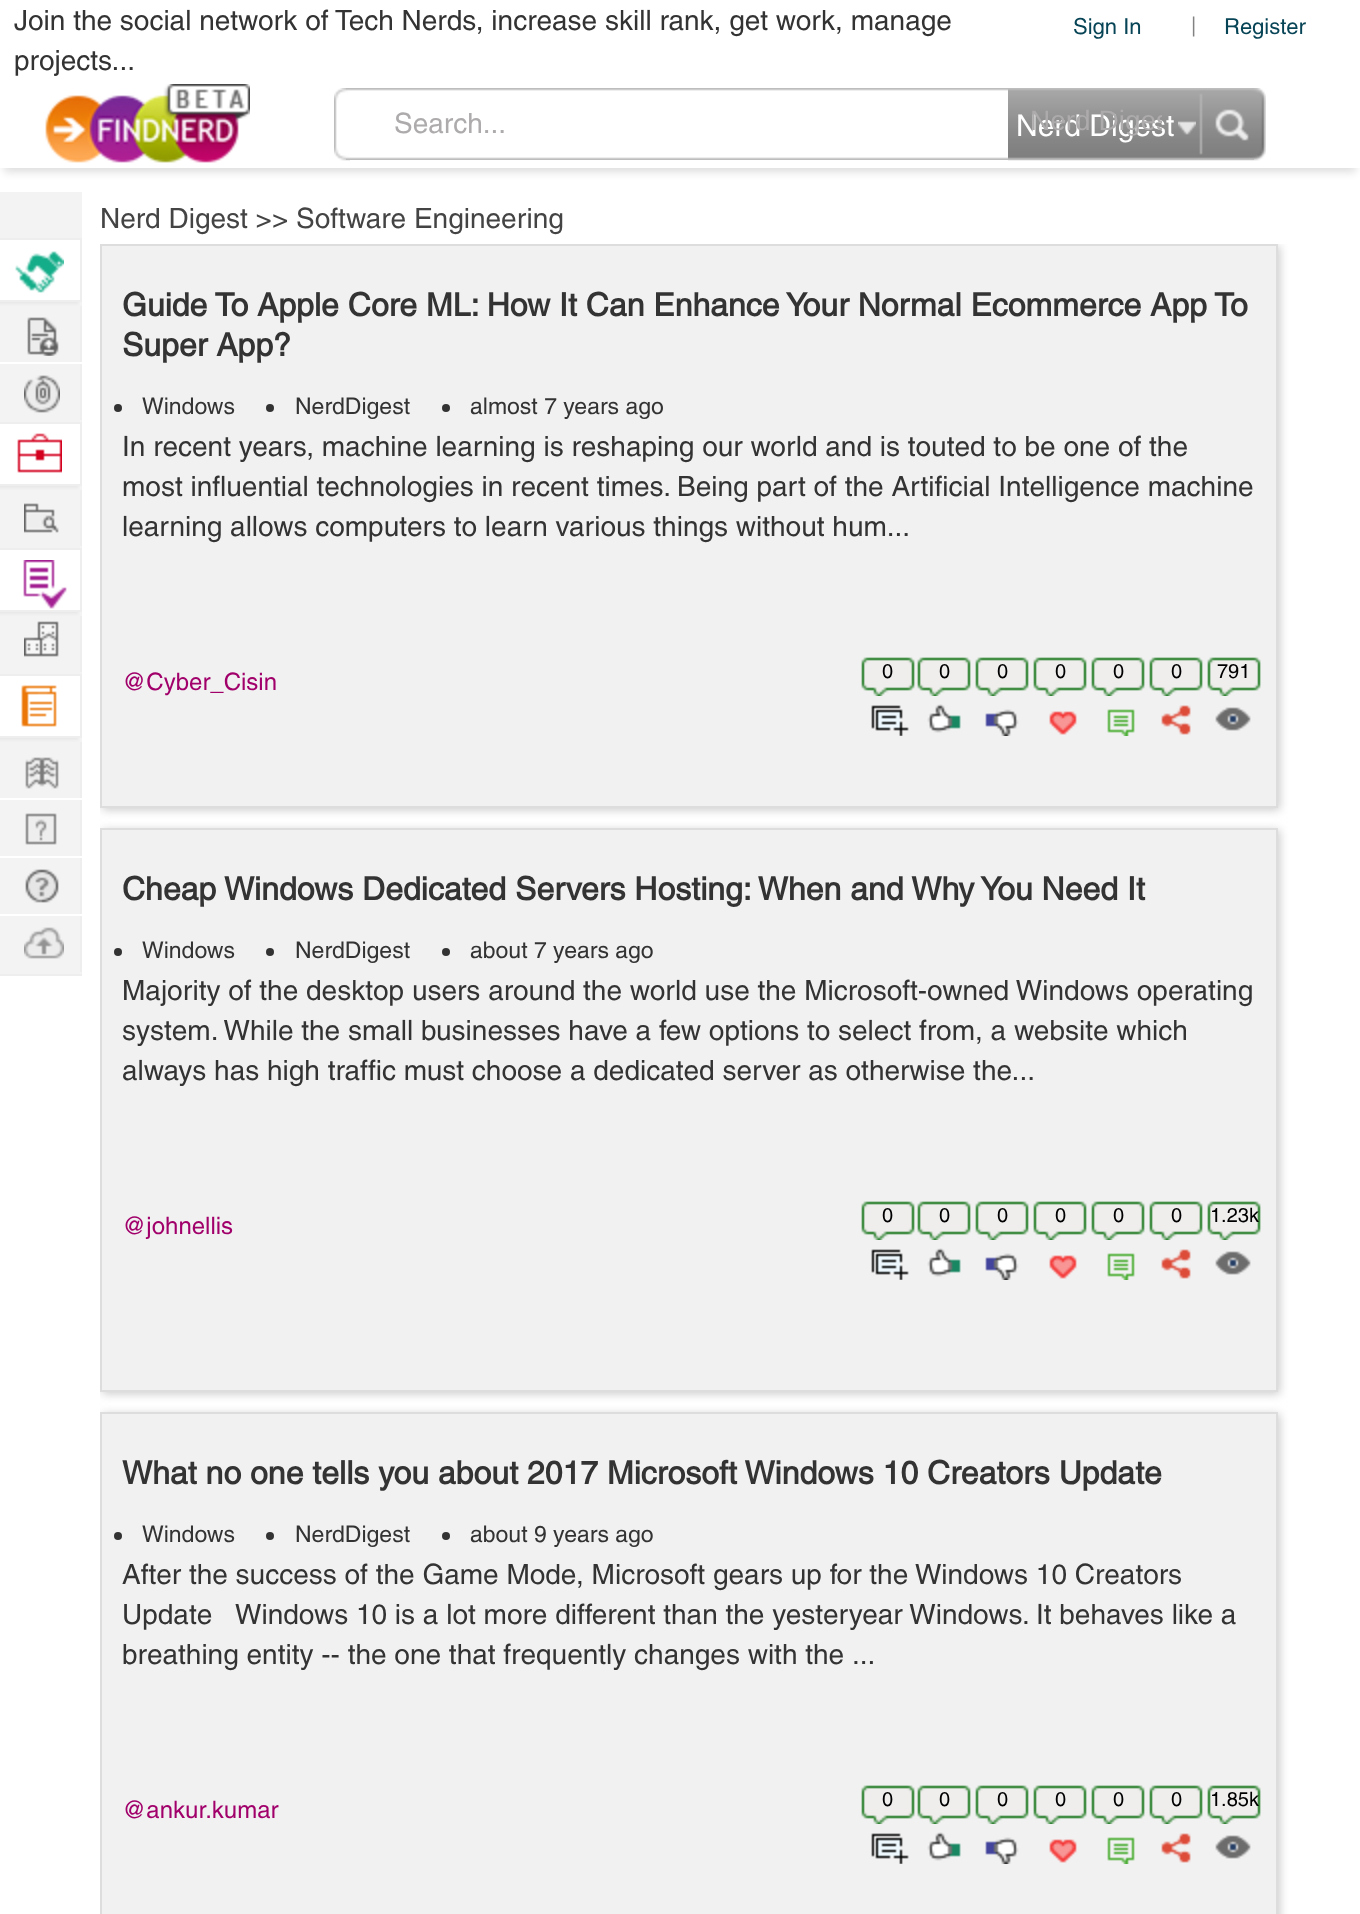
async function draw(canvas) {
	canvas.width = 1360;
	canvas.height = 1914;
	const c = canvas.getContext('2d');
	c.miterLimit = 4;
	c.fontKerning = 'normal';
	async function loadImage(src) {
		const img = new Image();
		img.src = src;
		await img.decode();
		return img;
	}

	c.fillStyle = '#fff';
	c.fillRect(0, 0, 1360, 1914);
	c.save();
	c.beginPath();
	c.rect(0, 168, 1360, 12);
	c.clip();
	c.fillStyle = '#ddd';
	c.filter = 'blur(4px)';
	c.beginPath();
	c.rect(4, 12, 1352, 160);
	c.fill();
	c.filter = 'none';
	c.restore();
	c.font = '28px Helvetica';
	c.fillStyle = '#333';
	c.fillText('Join the social network of Tech Nerds, increase skill rank, get work, manage', 14, 30);
	c.font = '22px Helvetica';
	c.fillStyle = '#074456';
	c.fillText('Sign In', 1073, 34);
	c.font = '20px Helvetica';
	c.fillStyle = '#828282';
	c.fillText('|', 1191, 32);
	c.font = '22px Helvetica';
	c.fillStyle = '#074456';
	c.fillText('Register', 1224, 34);
	c.font = '28px Helvetica';
	c.fillStyle = '#333';
	c.fillText('projects...', 14, 70);
	c.drawImage(await loadImage('img1.png'), 45, 84, 205, 79);
	c.drawImage(await loadImage('img3.png'), 346, 88, 908, 72);
	c.drawImage(await loadImage('img2.png'), 334, 88, 16, 73);
	c.fillStyle = '#adabab';
	c.fillText('Search...', 394, 133);
	c.drawImage(await loadImage('img4.png'), 1008, 88, 258, 73);
	c.font = '30px Helvetica';
	c.fillStyle = '#fff';
	c.fillText('Nerd Digest', 1016, 136);
	c.save();
	c.beginPath();
	c.rect(1030, 102, 132, 36);
	c.clip();
	c.font = '28px Liberation Sans';
	c.fillStyle = '#adabab';
	c.fillText('Nerd Diges', 1030, 130);
	c.restore();
	c.drawImage(await loadImage('img5.png'), 1178, 121, 18, 14);
	c.drawImage(await loadImage('img6.png'), 1215, 109, 34, 32);
	c.fillStyle = '#f3f3f3';
	c.fillRect(0, 192, 82, 780);
	c.fillStyle = '#eee';
	c.fillRect(0, 974, 82, 2);
	c.fillStyle = '#dddddd80';
	c.filter = 'blur(1px)';
	c.beginPath();
	c.rect(-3, 240, 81, 64);
	c.fill();
	c.filter = 'none';
	for (const [x, y, w, h, color] of [
		[0, 240, 80, 60, '#fff'],
		[0, 238, 82, 2, '#eee'],
		[80, 238, 2, 64, '#eee'],
		[0, 300, 82, 2, '#eee'],
	]) {
		c.fillStyle = color;
		c.fillRect(x, y, w, h);
	}
	c.drawImage(await loadImage('img7.png'), 15, 251, 49, 42);
	c.fillRect(80, 306, 2, 116);
	c.fillStyle = '#fff';
	c.fillRect(0, 362, 82, 2);
	c.drawImage(await loadImage('img8.png'), 27, 317, 32, 39);
	c.fillStyle = '#f3f3f3';
	c.fillRect(80, 420, 2, 2);
	c.drawImage(await loadImage('img9.png'), 24, 375, 36, 38);
	c.fillStyle = '#dddddd80';
	c.filter = 'blur(1px)';
	c.beginPath();
	c.rect(-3, 424, 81, 64);
	c.fill();
	c.filter = 'none';
	for (const [x, y, w, h, color] of [
		[0, 424, 80, 60, '#fff'],
		[0, 422, 82, 2, '#eee'],
		[80, 422, 2, 64, '#eee'],
		[0, 484, 82, 2, '#eee'],
	]) {
		c.fillStyle = color;
		c.fillRect(x, y, w, h);
	}
	c.drawImage(await loadImage('img10.png'), 17, 433, 45, 40);
	c.fillRect(80, 490, 2, 58);
	c.fillStyle = '#f3f3f3';
	c.fillRect(80, 546, 2, 2);
	c.drawImage(await loadImage('img11.png'), 24, 503, 35, 30);
	c.fillStyle = '#dddddd80';
	c.filter = 'blur(1px)';
	c.beginPath();
	c.rect(-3, 550, 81, 64);
	c.fill();
	c.filter = 'none';
	for (const [x, y, w, h, color] of [
		[0, 550, 80, 60, '#fff'],
		[0, 548, 82, 2, '#eee'],
		[80, 548, 2, 64, '#eee'],
		[0, 610, 82, 2, '#eee'],
	]) {
		c.fillStyle = color;
		c.fillRect(x, y, w, h);
	}
	c.drawImage(await loadImage('img12.png'), 23, 560, 44, 49);
	c.fillRect(80, 616, 2, 58);
	c.fillStyle = '#f3f3f3';
	c.fillRect(80, 672, 2, 2);
	c.drawImage(await loadImage('img13.png'), 24, 621, 35, 36);
	c.fillStyle = '#dddddd80';
	c.filter = 'blur(1px)';
	c.beginPath();
	c.rect(-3, 676, 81, 64);
	c.fill();
	c.filter = 'none';
	for (const [x, y, w, h, color] of [
		[0, 676, 80, 60, '#fff'],
		[0, 674, 82, 2, '#eee'],
		[80, 674, 2, 64, '#eee'],
		[0, 736, 82, 2, '#eee'],
	]) {
		c.fillStyle = color;
		c.fillRect(x, y, w, h);
	}
	c.drawImage(await loadImage('img14.png'), 21, 684, 36, 43);
	c.fillRect(80, 742, 2, 232);
	c.fillStyle = '#fff';
	c.fillRect(0, 798, 82, 2);
	c.drawImage(await loadImage('img15.png'), 25, 757, 34, 32);
	c.fillRect(0, 856, 82, 2);
	c.drawImage(await loadImage('img16.png'), 25, 813, 32, 32);
	c.fillRect(0, 914, 82, 2);
	c.drawImage(await loadImage('img17.png'), 25, 869, 34, 34);
	c.fillStyle = '#f3f3f3';
	c.fillRect(0, 972, 82, 2);
	c.drawImage(await loadImage('img18.png'), 24, 927, 40, 32);
	c.font = '28px Helvetica';
	c.fillStyle = '#444';
	c.fillText('Nerd Digest >> Software Engineering', 100, 228);
	c.save();
	c.beginPath();
	c.rect(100, 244, 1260, 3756);
	c.clip();
	c.fillStyle = '#ccc';
	c.filter = 'blur(5px)';
	c.beginPath();
	c.rect(102, 246, 1178, 564);
	c.fill();
	c.filter = 'none';
	c.restore();
	c.fillStyle = '#f1f1f1';
	c.beginPath();
	c.rect(101, 245, 1176, 562);
	c.fill();
	c.strokeStyle = '#ddd';
	c.lineWidth = 2;
	c.stroke();
	c.font = 'bold 32px Helvetica';
	c.fillStyle = '#333';
	c.fillText('Guide To Apple Core ML: How It Can Enhance Your Normal Ecommerce App To', 122, 316);
	c.fillText('Super App?', 122, 356);
	c.beginPath();
	c.arc(118, 408, 4, 0, 2 * Math.PI);
	c.fill();
	c.font = '23px Helvetica';
	c.fillText('Windows', 142, 414);
	c.beginPath();
	c.arc(270, 408, 4, 0, 2 * Math.PI);
	c.fill();
	c.fillText('NerdDigest', 295, 414);
	c.beginPath();
	c.arc(446, 408, 4, 0, 2 * Math.PI);
	c.fill();
	c.fillText('almost 7 years ago', 470, 414);
	c.font = '28px Helvetica';
	for (const [text, x, y] of [
		['In recent years, machine learning is reshaping our world and is touted to be one of the', 122, 456],
		['most influential technologies in recent times. Being part of the Artificial Intelligence machine', 122, 496],
		['learning allows computers to learn various things without hum...', 122, 536],
	]) {
		c.fillText(text, x, y);
	}
	c.font = '24px Helvetica';
	c.fillStyle = '#a1006b';
	c.fillText('@Cyber_Cisin', 122, 690);
	c.drawImage(await loadImage('img19.png'), 861, 657, 54, 39);
	c.font = '20px Helvetica';
	c.fillStyle = '#000';
	c.fillText('0', 882, 678);
	c.drawImage(await loadImage('img20.png'), 871, 705, 38, 31);
	c.drawImage(await loadImage('img19.png'), 917, 657, 54, 39);
	c.fillText('0', 939, 678);
	c.drawImage(await loadImage('img21.png'), 927, 704, 34, 29);
	c.drawImage(await loadImage('img19.png'), 975, 657, 54, 39);
	c.fillText('0', 997, 678);
	c.drawImage(await loadImage('img22.png'), 985, 709, 34, 27);
	c.drawImage(await loadImage('img19.png'), 1033, 657, 54, 39);
	c.fillText('0', 1055, 678);
	c.drawImage(await loadImage('img23.png'), 1049, 711, 28, 24);
	c.drawImage(await loadImage('img19.png'), 1091, 657, 54, 39);
	c.fillText('0', 1113, 678);
	c.drawImage(await loadImage('img24.png'), 1107, 709, 28, 27);
	c.drawImage(await loadImage('img19.png'), 1149, 657, 54, 39);
	c.fillText('0', 1171, 678);
	c.drawImage(await loadImage('img25.png'), 1161, 705, 30, 30);
	c.drawImage(await loadImage('img19.png'), 1207, 657, 54, 39);
	c.fillText('791', 1217, 678);
	c.drawImage(await loadImage('img26.png'), 1215, 707, 36, 24);
	c.save();
	c.beginPath();
	c.rect(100, 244, 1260, 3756);
	c.clip();
	c.fillStyle = '#ccc';
	c.filter = 'blur(5px)';
	c.beginPath();
	c.rect(102, 830, 1178, 564);
	c.fill();
	c.filter = 'none';
	c.restore();
	c.fillStyle = '#f1f1f1';
	c.beginPath();
	c.rect(101, 829, 1176, 562);
	c.fill();
	c.stroke();
	c.font = 'bold 32px Helvetica';
	c.fillStyle = '#333';
	c.fillText('Cheap Windows Dedicated Servers Hosting: When and Why You Need It', 122, 900);
	c.beginPath();
	c.arc(118, 952, 4, 0, 2 * Math.PI);
	c.fill();
	c.font = '23px Helvetica';
	c.fillText('Windows', 142, 958);
	c.beginPath();
	c.arc(270, 952, 4, 0, 2 * Math.PI);
	c.fill();
	c.fillText('NerdDigest', 295, 958);
	c.beginPath();
	c.arc(446, 952, 4, 0, 2 * Math.PI);
	c.fill();
	c.fillText('about 7 years ago', 470, 958);
	c.font = '28px Helvetica';
	for (const [text, x, y] of [
		['Majority of the desktop users around the world use the Microsoft-owned Windows operating', 122, 1000],
		['system. While the small businesses have a few options to select from, a website which', 122, 1040],
		['always has high traffic must choose a dedicated server as otherwise the...', 122, 1080],
	]) {
		c.fillText(text, x, y);
	}
	c.font = '24px Helvetica';
	c.fillStyle = '#a1006b';
	c.fillText('@johnellis', 122, 1234);
	c.drawImage(await loadImage('img19.png'), 861, 1201, 54, 39);
	c.font = '20px Helvetica';
	c.fillStyle = '#000';
	c.fillText('0', 882, 1222);
	c.drawImage(await loadImage('img20.png'), 871, 1249, 38, 31);
	c.drawImage(await loadImage('img19.png'), 917, 1201, 54, 39);
	c.fillText('0', 939, 1222);
	c.drawImage(await loadImage('img21.png'), 927, 1248, 34, 29);
	c.drawImage(await loadImage('img19.png'), 975, 1201, 54, 39);
	c.fillText('0', 997, 1222);
	c.drawImage(await loadImage('img22.png'), 985, 1253, 34, 27);
	c.drawImage(await loadImage('img19.png'), 1033, 1201, 54, 39);
	c.fillText('0', 1055, 1222);
	c.drawImage(await loadImage('img23.png'), 1049, 1255, 28, 24);
	c.drawImage(await loadImage('img19.png'), 1091, 1201, 54, 39);
	c.fillText('0', 1113, 1222);
	c.drawImage(await loadImage('img24.png'), 1107, 1253, 28, 27);
	c.drawImage(await loadImage('img19.png'), 1149, 1201, 54, 39);
	c.fillText('0', 1171, 1222);
	c.drawImage(await loadImage('img25.png'), 1161, 1249, 30, 30);
	c.drawImage(await loadImage('img19.png'), 1207, 1201, 54, 39);
	c.fillText('1.23k', 1210, 1222);
	c.drawImage(await loadImage('img26.png'), 1215, 1251, 36, 24);
	c.save();
	c.beginPath();
	c.rect(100, 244, 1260, 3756);
	c.clip();
	c.fillStyle = '#ccc';
	c.filter = 'blur(5px)';
	c.beginPath();
	c.rect(102, 1414, 1178, 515);
	c.fill();
	c.filter = 'none';
	c.restore();
	c.fillStyle = '#f1f1f1';
	c.beginPath();
	c.rect(101, 1413, 1176, 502);
	c.fill();
	c.stroke();
	c.font = 'bold 32px Helvetica';
	c.fillStyle = '#333';
	c.fillText('What no one tells you about 2017 Microsoft Windows 10 Creators Update', 122, 1484);
	c.beginPath();
	c.arc(118, 1536, 4, 0, 2 * Math.PI);
	c.fill();
	c.font = '23px Helvetica';
	c.fillText('Windows', 142, 1542);
	c.beginPath();
	c.arc(270, 1536, 4, 0, 2 * Math.PI);
	c.fill();
	c.fillText('NerdDigest', 295, 1542);
	c.beginPath();
	c.arc(446, 1536, 4, 0, 2 * Math.PI);
	c.fill();
	c.fillText('about 9 years ago', 470, 1542);
	c.font = '28px Helvetica';
	for (const [text, x, y] of [
		['After the success of the Game Mode, Microsoft gears up for the Windows 10 Creators', 122, 1584],
		['Update', 122, 1624],
		['Windows 10 is a lot more different than the yesteryear Windows. It behaves like a', 235, 1624],
		['breathing entity -- the one that frequently changes with the ...', 122, 1664],
	]) {
		c.fillText(text, x, y);
	}
	c.font = '24px Helvetica';
	c.fillStyle = '#a1006b';
	c.fillText('@ankur.kumar', 122, 1818);
	c.drawImage(await loadImage('img19.png'), 861, 1785, 54, 39);
	c.font = '20px Helvetica';
	c.fillStyle = '#000';
	c.fillText('0', 882, 1806);
	c.drawImage(await loadImage('img20.png'), 871, 1833, 38, 31);
	c.drawImage(await loadImage('img19.png'), 917, 1785, 54, 39);
	c.fillText('0', 939, 1806);
	c.drawImage(await loadImage('img21.png'), 927, 1832, 34, 29);
	c.drawImage(await loadImage('img19.png'), 975, 1785, 54, 39);
	c.fillText('0', 997, 1806);
	c.drawImage(await loadImage('img22.png'), 985, 1837, 34, 27);
	c.drawImage(await loadImage('img19.png'), 1033, 1785, 54, 39);
	c.fillText('0', 1055, 1806);
	c.drawImage(await loadImage('img23.png'), 1049, 1839, 28, 24);
	c.drawImage(await loadImage('img19.png'), 1091, 1785, 54, 39);
	c.fillText('0', 1113, 1806);
	c.drawImage(await loadImage('img24.png'), 1107, 1837, 28, 27);
	c.drawImage(await loadImage('img19.png'), 1149, 1785, 54, 39);
	c.fillText('0', 1171, 1806);
	c.drawImage(await loadImage('img25.png'), 1161, 1833, 30, 30);
	c.drawImage(await loadImage('img19.png'), 1207, 1785, 54, 39);
	c.fillText('1.85k', 1210, 1806);
	c.drawImage(await loadImage('img26.png'), 1215, 1835, 36, 24);
}

draw(document.querySelector('canvas'));
